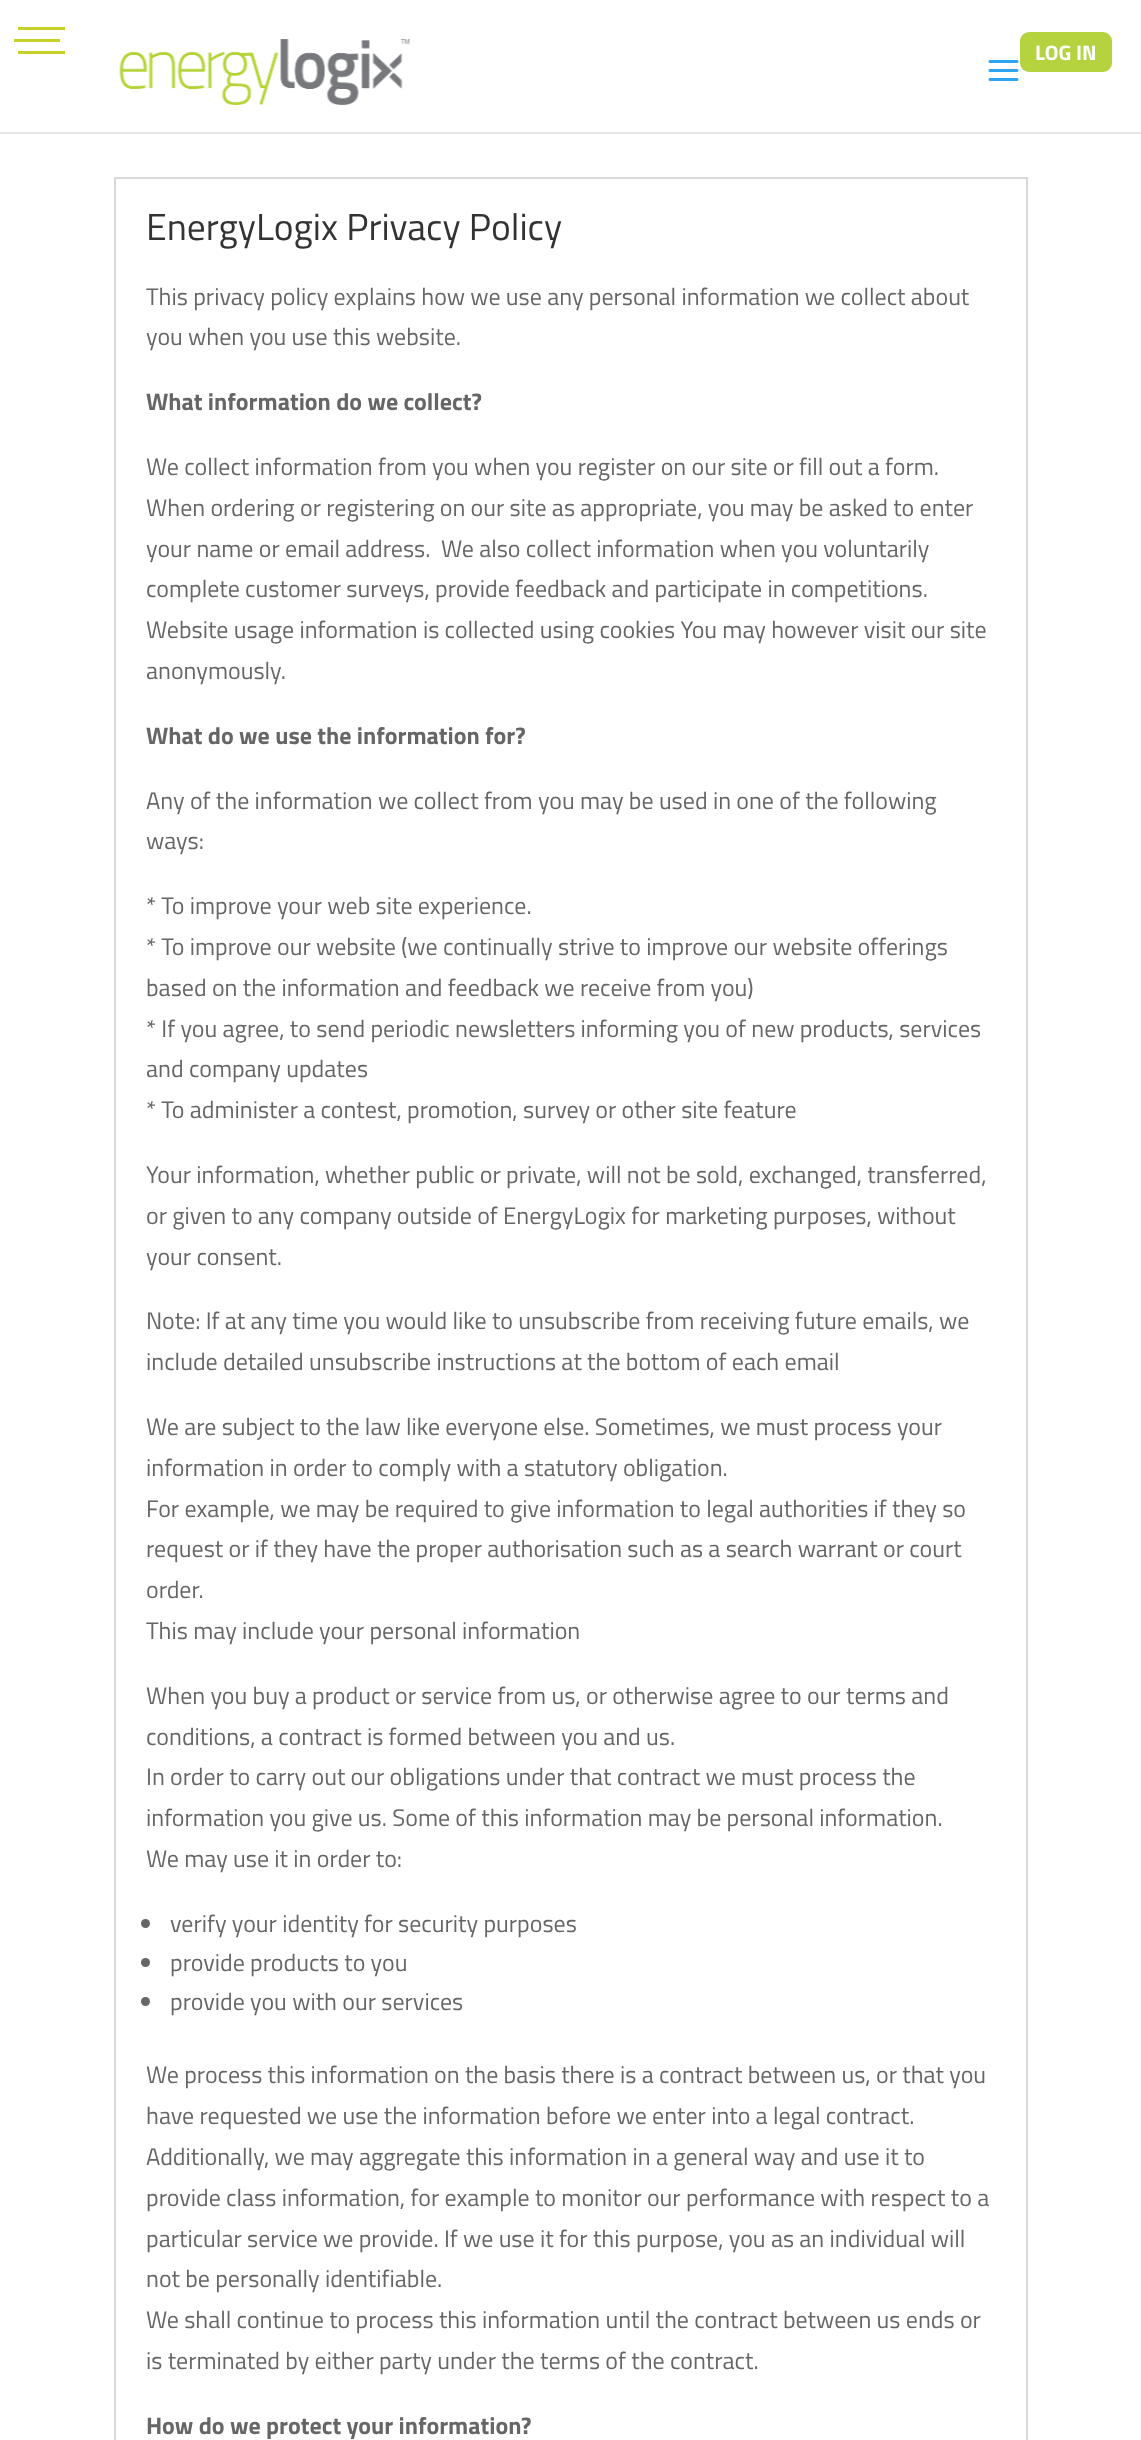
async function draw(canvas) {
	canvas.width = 1141;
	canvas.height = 2440;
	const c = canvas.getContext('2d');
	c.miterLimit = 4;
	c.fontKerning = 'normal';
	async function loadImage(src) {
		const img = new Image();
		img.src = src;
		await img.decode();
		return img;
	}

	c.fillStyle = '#fff';
	c.fillRect(0, 0, 1141, 2440);
	for (const [x, y, w, h, color] of [
		[14, 39, 46, 3, '#c6d026'],
		[18, 27, 47, 3, '#c6d026'],
		[18, 51, 47, 3, '#c6d026'],
	]) {
		c.fillStyle = color;
		c.fillRect(x, y, w, h);
	}
	c.fillStyle = '#e6e6e6';
	c.beginPath();
	c.moveTo(0, 132);
	c.lineTo(0, 134);
	c.lineTo(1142, 134);
	c.lineTo(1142, 14);
	c.lineTo(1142, 132);
	c.closePath();
	c.fill();
	c.drawImage(await loadImage('img1.png'), 119, 39, 291, 66);
	c.drawImage(await loadImage('img2.png'), 988, 60, 31, 21);
	c.fillStyle = '#b4d33f';
	c.beginPath();
	c.roundRect(1020, 32, 92, 40, 9);
	c.fill();
	c.font = 'bold 21px Titillium Web';
	c.fillStyle = '#fff';
	c.fillText('LOG IN', 1035, 60);
	c.strokeStyle = '#d9d9d9';
	c.lineWidth = 2;
	c.strokeRect(115, 178, 912, 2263);
	c.font = '37.5px Titillium Web';
	c.fillStyle = '#333';
	c.fillText('EnergyLogix Privacy Policy', 146, 240);
	c.font = '24px Titillium Web';
	c.fillStyle = '#666';
	c.fillText('This privacy policy explains how we use any personal information we collect about', 146, 305);
	c.fillText('you when you use this website.', 146, 345);
	c.font = 'bold 24px Titillium Web';
	c.fillText('What information do we collect?', 146, 410);
	c.font = '24px Titillium Web';
	for (const [text, x, y] of [
		['We collect information from you when you register on our site or fill out a form.', 146, 475],
		['When ordering or registering on our site as appropriate, you may be asked to enter', 146, 516],
		['your name or email address.  We also collect information when you voluntarily', 146, 557],
		['complete customer surveys, provide feedback and participate in competitions.', 146, 597],
		['Website usage information is collected using cookies You may however visit our site', 146, 638],
		['anonymously.', 146, 679],
	]) {
		c.fillText(text, x, y);
	}
	c.font = 'bold 24px Titillium Web';
	c.fillText('What do we use the information for?', 146, 744);
	c.font = '24px Titillium Web';
	for (const [text, x, y] of [
		['Any of the information we collect from you may be used in one of the following', 146, 809],
		['ways:', 146, 849],
		['* To improve your web site experience.', 146, 914],
		['* To improve our website (we continually strive to improve our website offerings', 146, 955],
		['based on the information and feedback we receive from you)', 146, 996],
		['* If you agree, to send periodic newsletters informing you of new products, services', 146, 1037],
		['and company updates', 146, 1077],
		['* To administer a contest, promotion, survey or other site feature', 146, 1118],
		['Your information, whether public or private, will not be sold, exchanged, transferred,', 146, 1183],
		['or given to any company outside of EnergyLogix for marketing purposes, without', 146, 1224],
		['your consent.', 146, 1265],
		['Note: If at any time you would like to unsubscribe from receiving future emails, we', 146, 1329],
		['include detailed unsubscribe instructions at the bottom of each email', 146, 1370],
		['We are subject to the law like everyone else. Sometimes, we must process your', 146, 1435],
		['information in order to comply with a statutory obligation.', 146, 1476],
		['For example, we may be required to give information to legal authorities if they so', 146, 1517],
		['request or if they have the proper authorisation such as a search warrant or court', 146, 1557],
		['order.', 146, 1598],
		['This may include your personal information', 146, 1639],
		['When you buy a product or service from us, or otherwise agree to our terms and', 146, 1704],
		['conditions, a contract is formed between you and us.', 146, 1745],
		['In order to carry out our obligations under that contract we must process the', 146, 1785],
		['information you give us. Some of this information may be personal information.', 146, 1826],
		['We may use it in order to:', 146, 1867],
	]) {
		c.fillText(text, x, y);
	}
	c.beginPath();
	c.arc(145.5, 1923.5, 4.5, 0, 2 * Math.PI);
	c.fill();
	c.fillText('verify your identity for security purposes', 170, 1932);
	c.beginPath();
	c.arc(145.5, 1962.5, 4.5, 0, 2 * Math.PI);
	c.fill();
	c.fillText('provide products to you', 170, 1971);
	c.beginPath();
	c.arc(145.5, 2001.5, 4.5, 0, 2 * Math.PI);
	c.fill();
	for (const [text, x, y] of [
		['provide you with our services', 170, 2010],
		['We process this information on the basis there is a contract between us, or that you', 146, 2083],
		['have requested we use the information before we enter into a legal contract.', 146, 2124],
		['Additionally, we may aggregate this information in a general way and use it to', 146, 2165],
		['provide class information, for example to monitor our performance with respect to a', 146, 2206],
		['particular service we provide. If we use it for this purpose, you as an individual will', 146, 2247],
		['not be personally identifiable.', 146, 2287],
		['We shall continue to process this information until the contract between us ends or', 146, 2328],
		['is terminated by either party under the terms of the contract.', 146, 2369],
	]) {
		c.fillText(text, x, y);
	}
	c.font = 'bold 24px Titillium Web';
	c.fillText('How do we protect your information?', 146, 2434);
}

draw(document.querySelector('canvas'));
